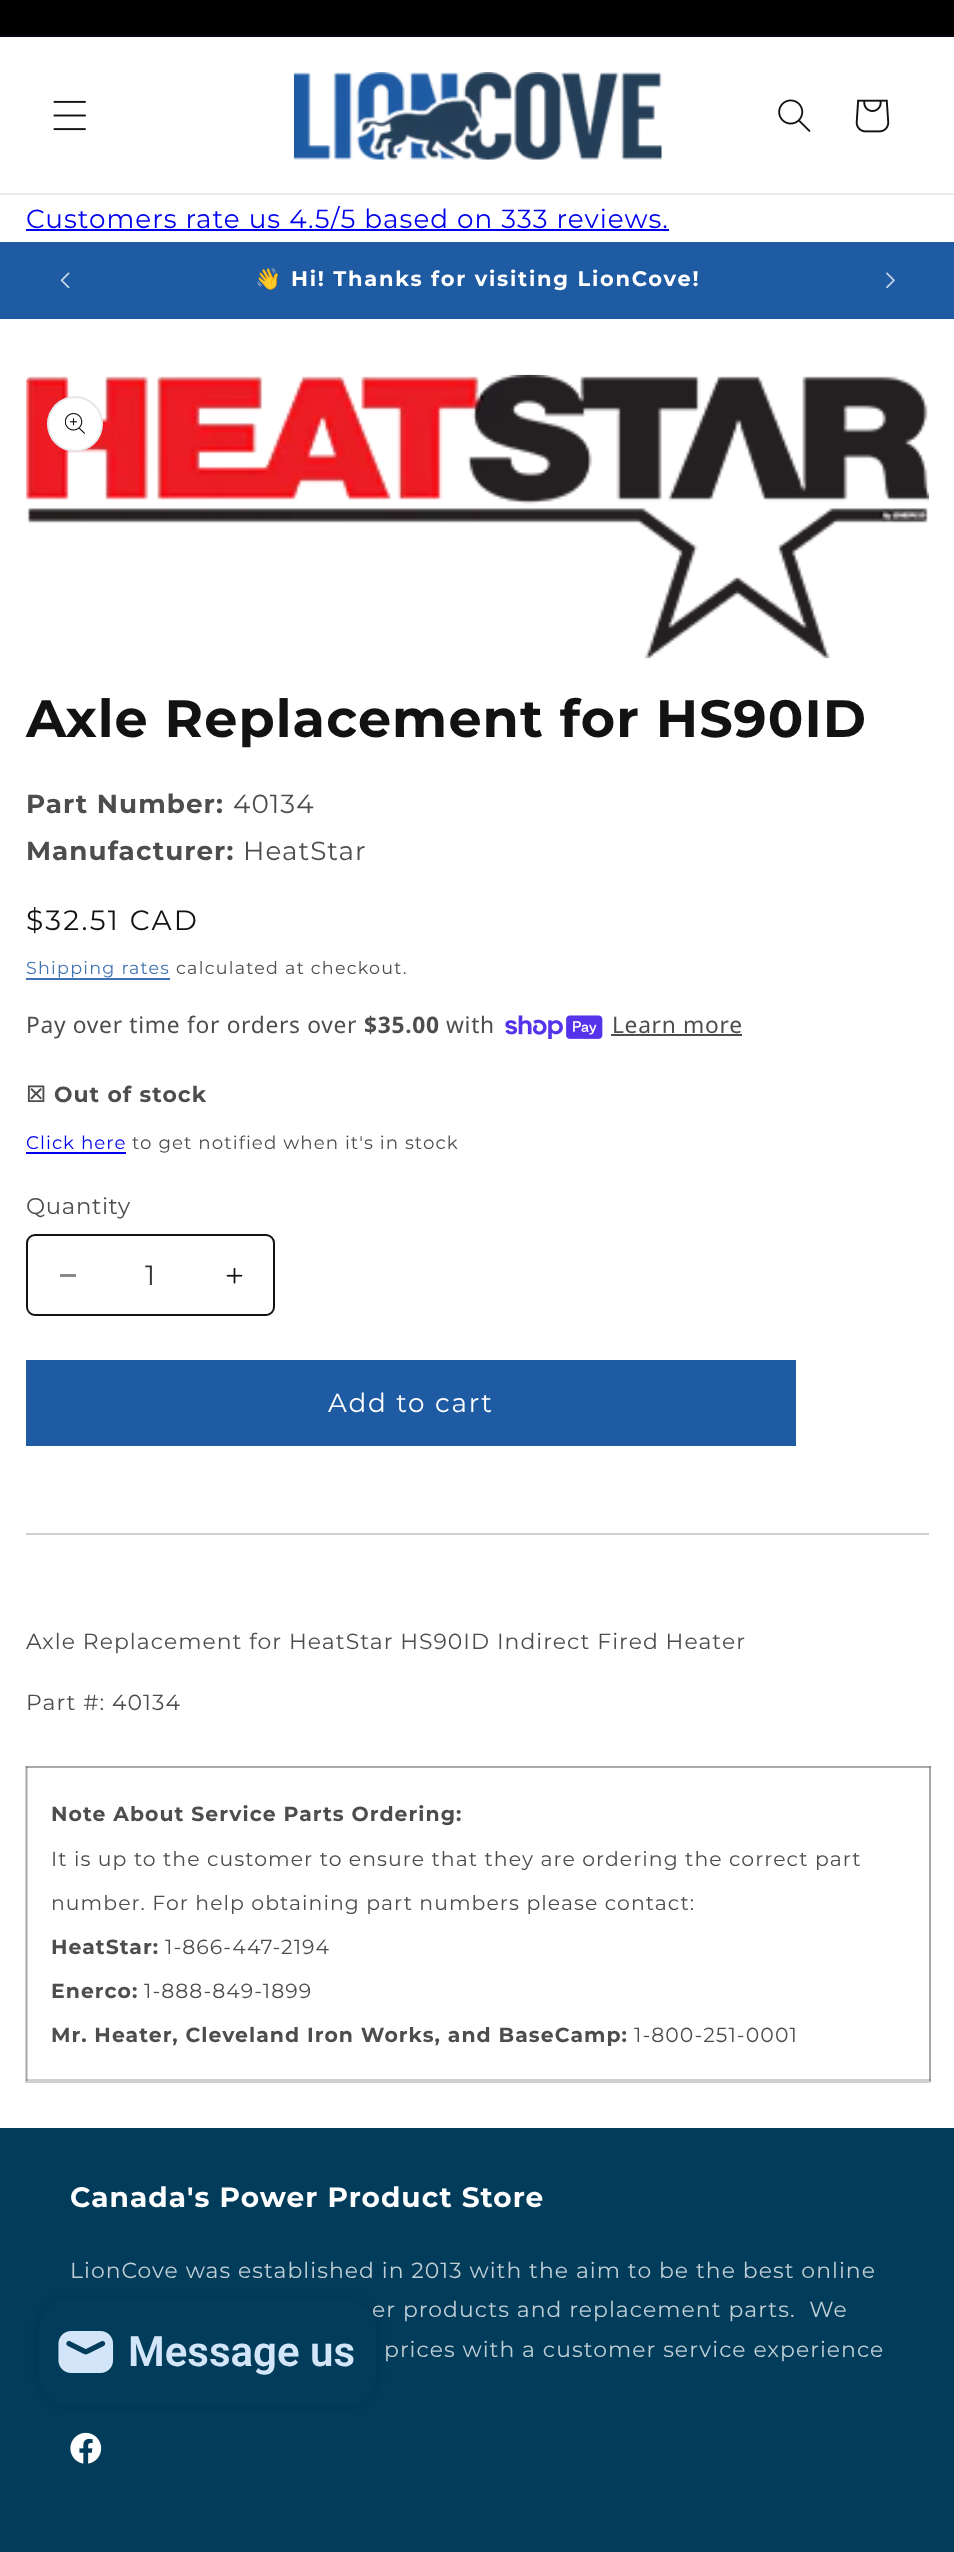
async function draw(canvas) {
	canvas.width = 954;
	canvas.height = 2552;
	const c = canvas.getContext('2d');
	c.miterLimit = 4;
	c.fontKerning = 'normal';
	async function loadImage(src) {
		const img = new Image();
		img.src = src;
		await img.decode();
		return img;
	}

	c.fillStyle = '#fff';
	c.fillRect(0, 0, 954, 2552);
	for (const [x, y, w, h, color] of [
		[0, 0, 954, 35, '#000'],
		[0, 35, 954, 2, '#02070d'],
		[0, 193, 954, 2, '#ececec'],
	]) {
		c.fillStyle = color;
		c.fillRect(x, y, w, h);
	}
	c.drawImage(await loadImage('img1.png'), 53, 100, 33, 31);
	c.drawImage(await loadImage('img2.png'), 294, 72, 368, 88);
	c.drawImage(await loadImage('img3.png'), 778, 99, 33, 33);
	c.drawImage(await loadImage('img4.png'), 855, 99, 35, 34);
	c.fillStyle = '#00e';
	c.fillRect(26, 229, 643, 2);
	c.letterSpacing = '1.05px';
	c.font = '26.25px Montserrat';
	c.fillText('Customers rate us 4.5/5 based on 333 reviews.', 26, 228);
	c.fillStyle = '#1e5ba3';
	c.fillRect(0, 242, 954, 77);
	c.drawImage(await loadImage('img5.png'), 60, 272, 10, 17);
	c.letterSpacing = '1.75px';
	c.font = 'bold 21px Noto Color Emoji';
	c.fillStyle = '#fff';
	c.fillText('👋', 255, 286);
	c.font = 'bold 21px Montserrat';
	c.fillText('Hi! Thanks for visiting LionCove!', 291, 286);
	c.drawImage(await loadImage('img6.png'), 886, 272, 9, 17);
	c.drawImage(await loadImage('img7.png'), 26, 374, 904, 285);
	c.beginPath();
	c.arc(75, 424, 28, 0, 2 * Math.PI);
	c.fill();
	c.beginPath();
	c.arc(75, 424, 27, 0, 2 * Math.PI);
	c.strokeStyle = '#1212121a';
	c.lineWidth = 2;
	c.stroke();
	c.drawImage(await loadImage('img8.png'), 65, 413, 20, 21);
	c.letterSpacing = '1.05px';
	c.font = 'bold 52.5px Montserrat';
	c.fillStyle = '#121212';
	c.fillText('Axle Replacement for HS90ID', 26, 737);
	c.font = 'bold 26.25px Montserrat';
	c.fillStyle = '#4d4d4d';
	c.fillText('Part Number:', 26, 813);
	c.font = '26.25px Montserrat';
	c.fillText('40134', 233, 813);
	c.font = 'bold 26.25px Montserrat';
	c.fillText('Manufacturer:', 26, 860);
	c.font = '26.25px Montserrat';
	c.fillText('HeatStar', 243, 860);
	c.letterSpacing = '2.25px';
	c.font = '28px Montserrat';
	c.fillStyle = '#121212';
	c.fillText('$32.51 CAD', 26, 930);
	c.letterSpacing = '1.25px';
	c.font = '17.5px Montserrat';
	c.fillStyle = '#4074b1';
	c.fillText('Shipping rates', 26, 974);
	c.fillRect(26, 978, 144, 2);
	c.fillStyle = '#4d4d4d';
	c.fillText('calculated at checkout.', 176, 974);
	c.letterSpacing = '0.7px';
	c.font = '22.75px Noto Sans';
	c.fillText('Pay over time for orders over', 26, 1033);
	c.font = 'bold 22.75px Noto Sans';
	c.fillText('$35.00', 364, 1033);
	c.font = '22.75px Noto Sans';
	c.fillText('with', 446, 1033);
	c.drawImage(await loadImage('img9.png'), 505, 1015, 98, 24);
	c.fillText('Learn more', 612, 1033);
	c.fillRect(611, 1034, 131, 2);
	c.letterSpacing = '1.05px';
	c.font = 'bold 21.9px DejaVu Sans';
	c.fillText('☒', 26, 1102);
	c.font = 'bold 21.9px Montserrat';
	c.fillText('Out of stock', 54, 1102);
	c.font = '18.25px Montserrat';
	c.fillStyle = '#00e';
	c.fillText('Click here', 26, 1149);
	c.fillRect(26, 1152, 100, 2);
	c.fillStyle = '#4d4d4d';
	c.fillText('to get notified when it\'s in stock', 132, 1149);
	c.letterSpacing = '0.7px';
	c.font = '22.75px Montserrat';
	c.fillText('Quantity', 26, 1214);
	c.fillStyle = '#898989';
	c.fillRect(60, 1274, 16, 3);
	c.drawImage(await loadImage('img10.png'), 226, 1267, 17, 17);
	c.beginPath();
	c.roundRect(27, 1235, 247, 80, 8);
	c.strokeStyle = '#121212';
	c.stroke();
	c.letterSpacing = '0px';
	c.font = '28px Montserrat';
	c.fillStyle = '#363636';
	c.fillText('1', 145, 1285);
	c.fillStyle = '#1e5ba3';
	c.fillRect(26, 1360, 770, 86);
	c.letterSpacing = '1.75px';
	c.font = '26.25px Montserrat';
	c.fillStyle = '#fff';
	c.fillText('Add to cart', 328, 1412);
	c.fillStyle = '#d0d0d0';
	c.fillRect(26, 1533, 903, 2);
	c.letterSpacing = '1.05px';
	c.font = '21.9px Montserrat';
	c.fillStyle = '#4d4d4d';
	c.fillText('Axle Replacement for HeatStar HS90ID Indirect Fired Heater', 26, 1649);
	c.fillText('Part #: 40134', 26, 1710);
	c.strokeStyle = '#d0d0d0';
	c.strokeRect(26, 1767, 904, 315);
	for (const [x, y, w, h, color] of [
		[26, 1766, 905, 2, '#aaa'],
		[929, 1766, 2, 315, '#12121233'],
		[26, 2079, 905, 2, '#12121233'],
		[26, 1766, 2, 315, '#12121233'],
	]) {
		c.fillStyle = color;
		c.fillRect(x, y, w, h);
	}
	c.font = 'bold 20.4px Montserrat';
	c.fillStyle = '#4d4d4d';
	c.fillText('Note About Service Parts Ordering:', 51, 1821);
	c.font = '20.4px Montserrat';
	c.fillText('It is up to the customer to ensure that they are ordering the correct part', 51, 1866);
	c.fillText('number. For help obtaining part numbers please contact:', 51, 1910);
	c.font = 'bold 20.4px Montserrat';
	c.fillText('HeatStar:', 51, 1954);
	c.font = '20.4px Montserrat';
	c.fillText('1-866-447-2194', 165, 1954);
	c.font = 'bold 20.4px Montserrat';
	c.fillText('Enerco:', 51, 1998);
	c.font = '20.4px Montserrat';
	c.fillText('1-888-849-1899', 144, 1998);
	c.font = 'bold 20.4px Montserrat';
	c.fillText('Mr. Heater, Cleveland Iron Works, and BaseCamp:', 51, 2042);
	c.font = '20.4px Montserrat';
	c.fillText('1-800-251-0001', 634, 2042);
	c.fillStyle = '#023c5b';
	c.fillRect(0, 2128, 954, 424);
	c.font = 'bold 28px Montserrat';
	c.fillStyle = '#fff';
	c.fillText('Canada\'s Power Product Store', 70, 2207);
	c.font = '21.9px Montserrat';
	c.fillStyle = '#c0ced6';
	for (const [text, x, y] of [
		['LionCove was established in 2013 with the aim to be the best online', 70, 2278],
		['er products and replacement parts.  We', 372, 2317],
		['prices with a customer service experience', 384, 2357],
	]) {
		c.fillText(text, x, y);
	}
	c.drawImage(await loadImage('img11.png'), 70, 2432, 32, 32);
	c.fillStyle = '#00000026';
	c.filter = 'blur(4.5px)';
	c.beginPath();
	c.roundRect(39, 2300, 337, 105, 28);
	c.fill();
	c.filter = 'none';
	c.fillStyle = '#023c5b';
	c.beginPath();
	c.roundRect(39, 2300, 337, 105, 28);
	c.fill();
	c.drawImage(await loadImage('img12.png'), 58, 2331, 56, 42);
	c.letterSpacing = '0px';
	c.font = '600 42px Roboto';
	c.fillStyle = '#d3e5f8';
	c.fillText('Message us', 128, 2366);
}

draw(document.querySelector('canvas'));
